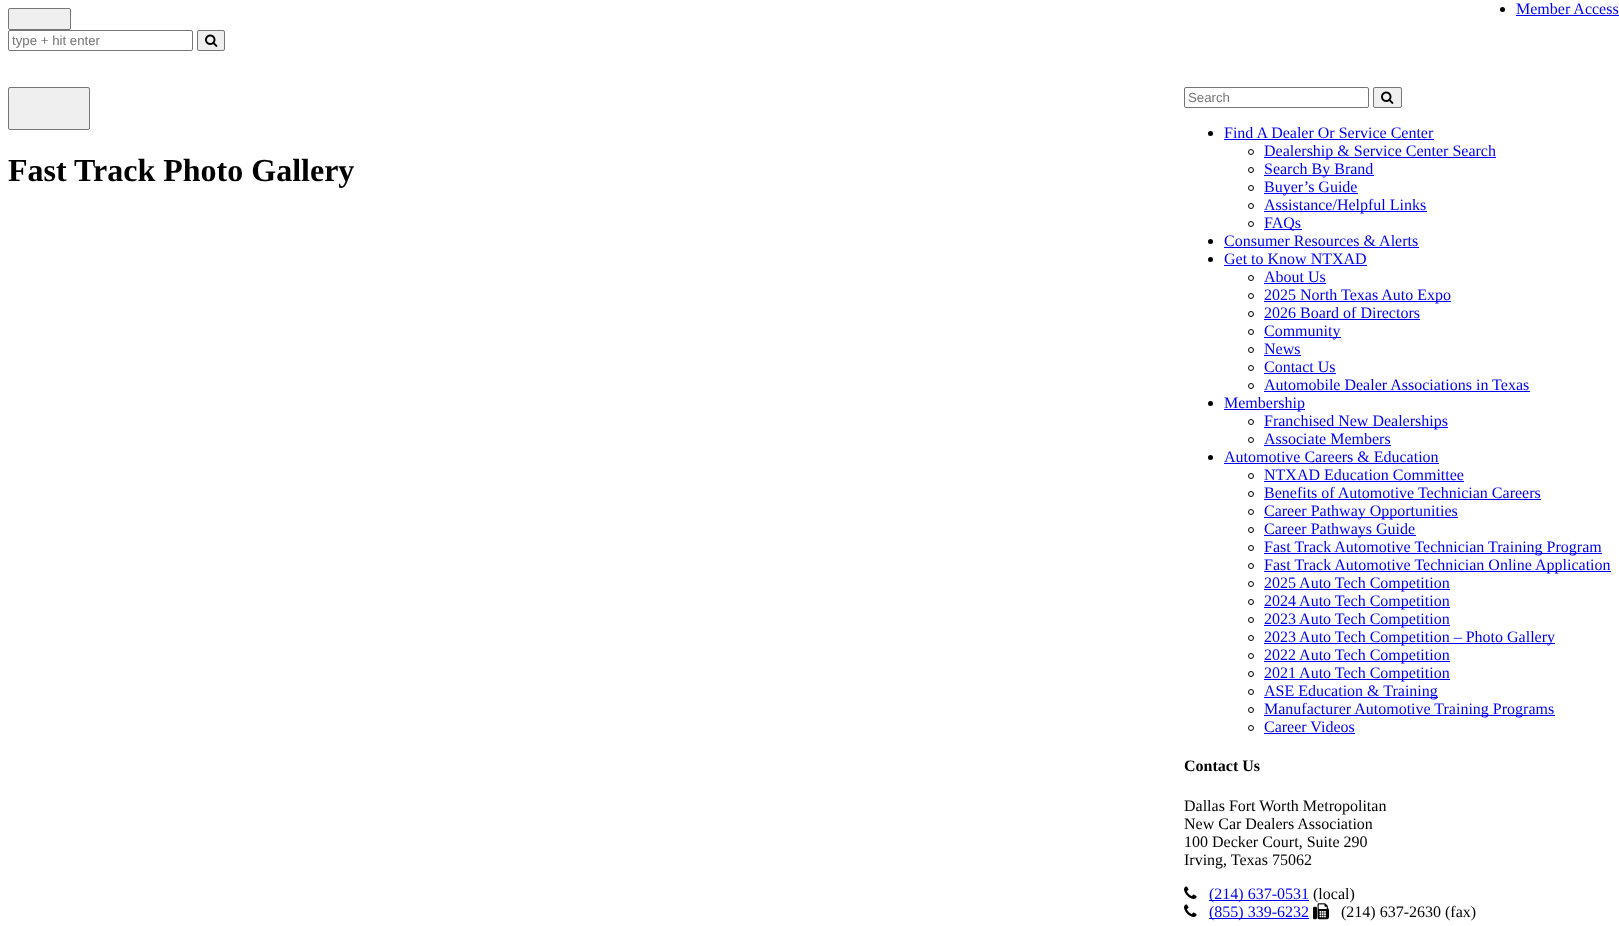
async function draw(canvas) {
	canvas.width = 1619;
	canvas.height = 926;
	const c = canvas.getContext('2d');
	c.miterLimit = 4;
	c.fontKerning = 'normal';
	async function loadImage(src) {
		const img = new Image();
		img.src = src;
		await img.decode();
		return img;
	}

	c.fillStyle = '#fff';
	c.fillRect(0, 0, 1619, 926);
	c.fillStyle = '#efefef';
	c.beginPath();
	c.roundRect(8.5, 8.5, 62, 21, 1.5);
	c.fill();
	c.strokeStyle = '#767676';
	c.stroke();
	c.beginPath();
	c.roundRect(8.5, 30.5, 184, 20, 1.5);
	c.stroke();
	c.font = '13.25px Liberation Sans';
	c.fillStyle = '#757575';
	c.fillText('type + hit enter', 12, 45);
	c.fillStyle = '#efefef';
	c.beginPath();
	c.roundRect(197.5, 30.5, 27, 20, 1.5);
	c.fill();
	c.stroke();
	c.drawImage(await loadImage('img1.png'), 205, 34, 13, 13);
	c.beginPath();
	c.roundRect(8.5, 87.5, 81, 42, 1.5);
	c.fill();
	c.stroke();
	c.beginPath();
	c.roundRect(1184.5, 87.5, 184, 20, 1.5);
	c.stroke();
	c.fillStyle = '#757575';
	c.fillText('Search', 1188, 102);
	c.fillStyle = '#efefef';
	c.beginPath();
	c.roundRect(1373.5, 87.5, 28, 20, 1.5);
	c.fill();
	c.stroke();
	c.drawImage(await loadImage('img1.png'), 1381, 91, 13, 13);
	c.fillStyle = '#000';
	c.beginPath();
	c.arc(1502.5, 9.5, 2.5, 0, 2 * Math.PI);
	c.fill();
	c.font = '16px Liberation Serif';
	c.fillStyle = '#00e';
	c.fillText('Member Access', 1516, 14);
	c.fillRect(1516, 15, 103, 1);
	c.fillStyle = '#000';
	c.beginPath();
	c.arc(1210.5, 133.5, 2.5, 0, 2 * Math.PI);
	c.fill();
	c.fillStyle = '#00e';
	c.fillText('Find A Dealer Or Service Center', 1224, 138);
	c.fillRect(1224, 139, 210, 1);
	c.beginPath();
	c.arc(1251, 152, 2.5, 0, 2 * Math.PI);
	c.strokeStyle = '#000';
	c.stroke();
	c.fillRect(1264, 157, 232, 1);
	c.fillText('Dealership & Service Center Search', 1264, 156);
	c.beginPath();
	c.arc(1251, 170, 2.5, 0, 2 * Math.PI);
	c.stroke();
	c.fillRect(1264, 175, 110, 1);
	c.fillText('Search By Brand', 1264, 174);
	c.beginPath();
	c.arc(1251, 188, 2.5, 0, 2 * Math.PI);
	c.stroke();
	c.fillRect(1264, 193, 94, 1);
	c.fillText('Buyer’s Guide', 1264, 192);
	c.beginPath();
	c.arc(1251, 206, 2.5, 0, 2 * Math.PI);
	c.stroke();
	c.fillRect(1264, 211, 163, 1);
	c.fillText('Assistance/Helpful Links', 1264, 210);
	c.beginPath();
	c.arc(1251, 224, 2.5, 0, 2 * Math.PI);
	c.stroke();
	c.fillRect(1264, 229, 38, 1);
	c.fillText('FAQs', 1264, 228);
	c.fillStyle = '#000';
	c.beginPath();
	c.arc(1210.5, 241.5, 2.5, 0, 2 * Math.PI);
	c.fill();
	c.fillStyle = '#00e';
	c.fillText('Consumer Resources & Alerts', 1224, 246);
	c.fillRect(1224, 247, 195, 1);
	c.fillStyle = '#000';
	c.beginPath();
	c.arc(1210.5, 259.5, 2.5, 0, 2 * Math.PI);
	c.fill();
	c.fillStyle = '#00e';
	c.fillText('Get to Know NTXAD', 1224, 264);
	c.fillRect(1224, 265, 143, 1);
	c.beginPath();
	c.arc(1251, 278, 2.5, 0, 2 * Math.PI);
	c.stroke();
	c.fillText('About Us', 1264, 282);
	c.fillRect(1264, 283, 62, 1);
	c.beginPath();
	c.arc(1251, 296, 2.5, 0, 2 * Math.PI);
	c.stroke();
	c.fillRect(1264, 301, 187, 1);
	c.fillText('2025 North Texas Auto Expo', 1264, 300);
	c.beginPath();
	c.arc(1251, 314, 2.5, 0, 2 * Math.PI);
	c.stroke();
	c.fillText('2026 Board of Directors', 1264, 318);
	c.fillRect(1264, 319, 156, 1);
	c.beginPath();
	c.arc(1251, 332, 2.5, 0, 2 * Math.PI);
	c.stroke();
	c.fillRect(1264, 337, 77, 1);
	c.fillText('Community', 1264, 336);
	c.beginPath();
	c.arc(1251, 350, 2.5, 0, 2 * Math.PI);
	c.stroke();
	c.fillText('News', 1264, 354);
	c.fillRect(1264, 355, 37, 1);
	c.beginPath();
	c.arc(1251, 368, 2.5, 0, 2 * Math.PI);
	c.stroke();
	c.fillText('Contact Us', 1264, 372);
	c.fillRect(1264, 373, 72, 1);
	c.beginPath();
	c.arc(1251, 386, 2.5, 0, 2 * Math.PI);
	c.stroke();
	c.fillText('Automobile Dealer Associations in Texas', 1264, 390);
	c.fillRect(1264, 391, 266, 1);
	c.fillStyle = '#000';
	c.beginPath();
	c.arc(1210.5, 403.5, 2.5, 0, 2 * Math.PI);
	c.fill();
	c.fillStyle = '#00e';
	c.fillRect(1224, 409, 81, 1);
	c.fillText('Membership', 1224, 408);
	c.beginPath();
	c.arc(1251, 422, 2.5, 0, 2 * Math.PI);
	c.stroke();
	c.fillRect(1264, 427, 184, 1);
	c.fillText('Franchised New Dealerships', 1264, 426);
	c.beginPath();
	c.arc(1251, 440, 2.5, 0, 2 * Math.PI);
	c.stroke();
	c.fillText('Associate Members', 1264, 444);
	c.fillRect(1264, 445, 127, 1);
	c.fillStyle = '#000';
	c.beginPath();
	c.arc(1210.5, 457.5, 2.5, 0, 2 * Math.PI);
	c.fill();
	c.fillStyle = '#00e';
	c.fillText('Automotive Careers & Education', 1224, 462);
	c.fillRect(1224, 463, 215, 1);
	c.beginPath();
	c.arc(1251, 476, 2.5, 0, 2 * Math.PI);
	c.stroke();
	c.fillText('NTXAD Education Committee', 1264, 480);
	c.fillRect(1264, 481, 200, 1);
	c.beginPath();
	c.arc(1251, 494, 2.5, 0, 2 * Math.PI);
	c.stroke();
	c.fillText('Benefits of Automotive Technician Careers', 1264, 498);
	c.fillRect(1264, 499, 277, 1);
	c.beginPath();
	c.arc(1251, 512, 2.5, 0, 2 * Math.PI);
	c.stroke();
	c.fillRect(1264, 517, 194, 1);
	c.fillText('Career Pathway Opportunities', 1264, 516);
	c.beginPath();
	c.arc(1251, 530, 2.5, 0, 2 * Math.PI);
	c.stroke();
	c.fillRect(1264, 535, 152, 1);
	c.fillText('Career Pathways Guide', 1264, 534);
	c.beginPath();
	c.arc(1251, 548, 2.5, 0, 2 * Math.PI);
	c.stroke();
	c.fillRect(1264, 553, 338, 1);
	c.fillText('Fast Track Automotive Technician Training Program', 1264, 552);
	c.beginPath();
	c.arc(1251, 566, 2.5, 0, 2 * Math.PI);
	c.stroke();
	c.fillRect(1264, 571, 347, 1);
	c.fillText('Fast Track Automotive Technician Online Application', 1264, 570);
	c.beginPath();
	c.arc(1251, 584, 2.5, 0, 2 * Math.PI);
	c.stroke();
	c.fillRect(1264, 589, 186, 1);
	c.fillText('2025 Auto Tech Competition', 1264, 588);
	c.beginPath();
	c.arc(1251, 602, 2.5, 0, 2 * Math.PI);
	c.stroke();
	c.fillRect(1264, 607, 186, 1);
	c.fillText('2024 Auto Tech Competition', 1264, 606);
	c.beginPath();
	c.arc(1251, 620, 2.5, 0, 2 * Math.PI);
	c.stroke();
	c.fillRect(1264, 625, 186, 1);
	c.fillText('2023 Auto Tech Competition', 1264, 624);
	c.beginPath();
	c.arc(1251, 638, 2.5, 0, 2 * Math.PI);
	c.stroke();
	c.fillRect(1264, 643, 291, 1);
	c.fillText('2023 Auto Tech Competition – Photo Gallery', 1264, 642);
	c.beginPath();
	c.arc(1251, 656, 2.5, 0, 2 * Math.PI);
	c.stroke();
	c.fillRect(1264, 661, 186, 1);
	c.fillText('2022 Auto Tech Competition', 1264, 660);
	c.beginPath();
	c.arc(1251, 674, 2.5, 0, 2 * Math.PI);
	c.stroke();
	c.fillRect(1264, 679, 186, 1);
	c.fillText('2021 Auto Tech Competition', 1264, 678);
	c.beginPath();
	c.arc(1251, 692, 2.5, 0, 2 * Math.PI);
	c.stroke();
	c.fillRect(1264, 697, 174, 1);
	c.fillText('ASE Education & Training', 1264, 696);
	c.beginPath();
	c.arc(1251, 710, 2.5, 0, 2 * Math.PI);
	c.stroke();
	c.fillRect(1264, 715, 291, 1);
	c.fillText('Manufacturer Automotive Training Programs', 1264, 714);
	c.beginPath();
	c.arc(1251, 728, 2.5, 0, 2 * Math.PI);
	c.stroke();
	c.fillText('Career Videos', 1264, 732);
	c.fillRect(1264, 733, 91, 1);
	c.font = 'bold 16px Liberation Serif';
	c.fillStyle = '#000';
	c.fillText('Contact Us', 1184, 771);
	c.font = '16px Liberation Serif';
	for (const [text, x, y] of [
		['Dallas Fort Worth Metropolitan', 1184, 811],
		['New Car Dealers Association', 1184, 829],
		['100 Decker Court, Suite 290', 1184, 847],
		['Irving, Texas 75062', 1184, 865],
	]) {
		c.fillText(text, x, y);
	}
	c.drawImage(await loadImage('img2.png'), 1184, 886, 13, 13);
	c.fillStyle = '#00e';
	c.fillRect(1209, 900, 100, 1);
	c.fillText('(214) 637-0531', 1209, 899);
	c.fillStyle = '#000';
	c.fillText('(local)', 1313, 899);
	c.drawImage(await loadImage('img2.png'), 1184, 904, 13, 13);
	c.fillStyle = '#00e';
	c.fillRect(1209, 918, 100, 1);
	c.fillText('(855) 339-6232', 1209, 917);
	c.drawImage(await loadImage('img3.png'), 1313, 903, 16, 17);
	c.fillStyle = '#000';
	c.fillText('(214) 637-2630 (fax)', 1341, 917);
	c.font = 'bold 32px Liberation Serif';
	c.fillText('Fast Track Photo Gallery', 8, 181);
}

draw(document.querySelector('canvas'));
